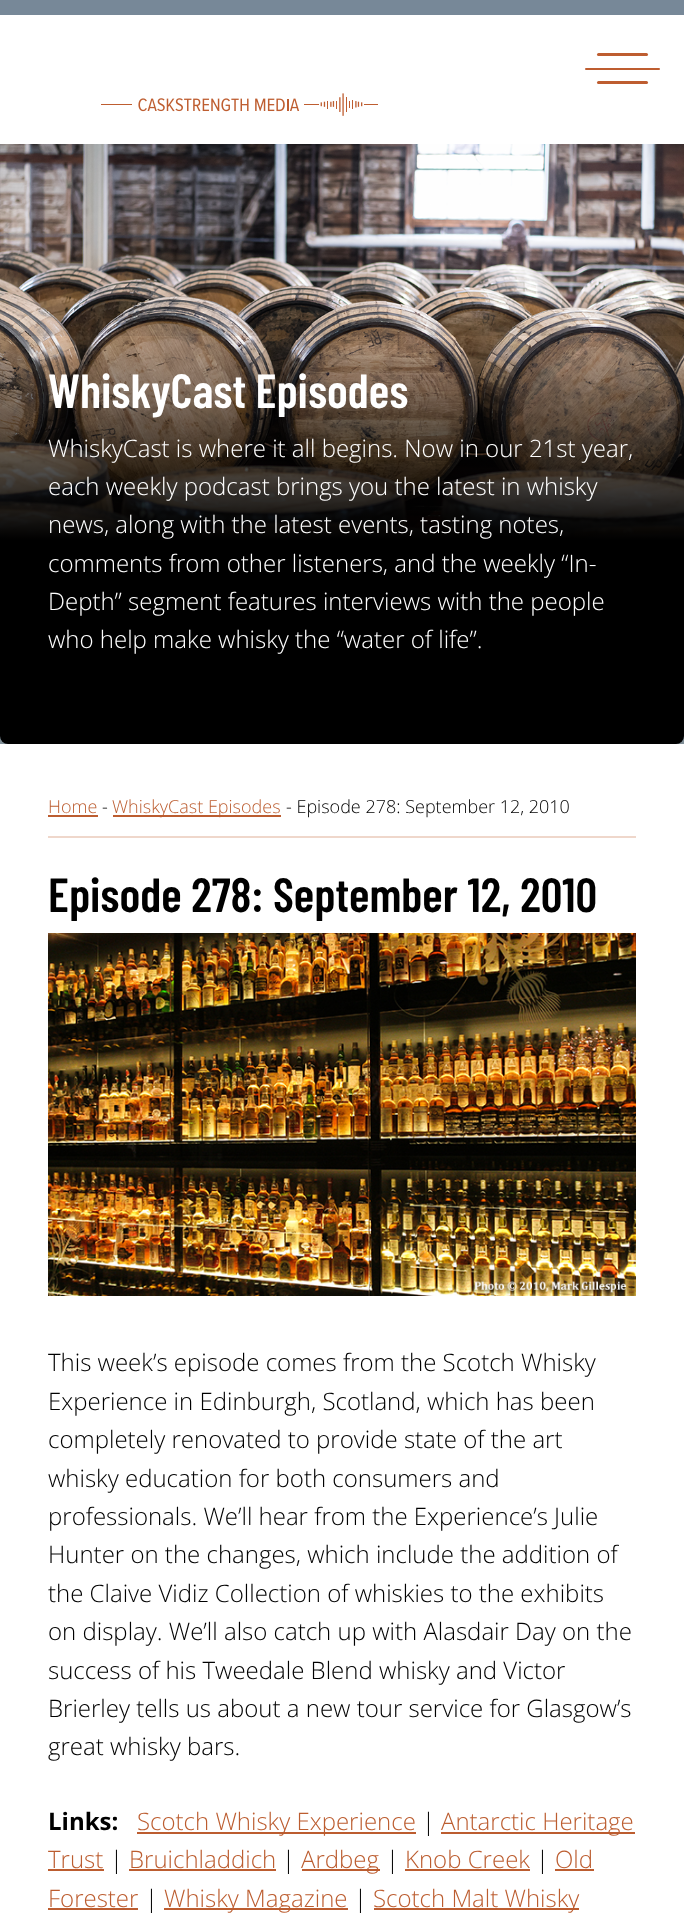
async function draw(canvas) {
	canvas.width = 684;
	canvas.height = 1929;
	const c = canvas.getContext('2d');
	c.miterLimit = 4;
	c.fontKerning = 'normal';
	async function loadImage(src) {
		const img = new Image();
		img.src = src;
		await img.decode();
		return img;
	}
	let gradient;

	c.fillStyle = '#fff';
	c.fillRect(0, 0, 684, 1929);
	c.fillStyle = '#778898';
	c.fillRect(0, 0, 684, 15);
	c.fillStyle = '#be5d30';
	c.beginPath();
	c.roundRect(597, 53, 51, 3, 1.5);
	c.fill();
	c.beginPath();
	c.roundRect(585, 68, 75, 2, 1);
	c.fill();
	c.beginPath();
	c.roundRect(597, 81, 51, 3, 1.5);
	c.fill();
	c.drawImage(await loadImage('img1.png'), 101, 93, 277, 23);
	c.fillStyle = '#8a99a3';
	c.fillRect(0, 736, 684, 8);
	c.drawImage(await loadImage('img2.png'), 0, 144, 684, 395);
	c.save();
	c.beginPath();
	c.moveTo(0, 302);
	c.lineTo(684, 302);
	c.lineTo(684, 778);
	c.lineTo(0, 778);
	c.closePath();
	c.moveTo(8, 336);
	c.lineTo(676, 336);
	c.bezierCurveTo(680.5, 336, 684, 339.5, 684, 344);
	c.lineTo(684, 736);
	c.bezierCurveTo(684, 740.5, 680.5, 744, 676, 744);
	c.lineTo(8, 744);
	c.bezierCurveTo(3.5, 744, 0, 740.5, 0, 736);
	c.lineTo(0, 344);
	c.bezierCurveTo(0, 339.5, 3.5, 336, 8, 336);
	c.closePath();
	c.clip('evenodd');
	c.fillStyle = '#00000026';
	c.filter = 'blur(11px)';
	c.beginPath();
	c.roundRect(0, 336, 684, 408, 8);
	c.fill();
	c.filter = 'none';
	c.restore();
	gradient = c.createLinearGradient(342, 336, 342, 744);
	gradient.addColorStop(0, '#00000000');
	gradient.addColorStop(0.5, '#000');
	c.fillStyle = gradient;
	c.beginPath();
	c.roundRect(0, 336, 684, 408, 8);
	c.fill();
	c.font = '600 48px Barlow Condensed';
	c.fillStyle = '#fff';
	c.fillText('WhiskyCast Episodes', 48, 408);
	c.font = '300 24px Open Sans';
	for (const [text, x, y] of [
		['WhiskyCast is where it all begins. Now in our 21st year,', 48, 457],
		['each weekly podcast brings you the latest in whisky', 48, 495],
		['news, along with the latest events, tasting notes,', 48, 533],
		['comments from other listeners, and the weekly “In-', 48, 572],
		['Depth” segment features interviews with the people', 48, 610],
		['who help make whisky the “water of life”.', 48, 648],
	]) {
		c.fillText(text, x, y);
	}
	c.fillStyle = '#0000001a';
	c.filter = 'blur(11px)';
	c.beginPath();
	c.rect(0, 744, 684, 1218);
	c.fill();
	c.filter = 'none';
	c.fillStyle = '#fff';
	c.fillRect(0, 744, 684, 1185);
	c.fillStyle = '#efd7cb';
	c.fillRect(48, 836, 588, 2);
	c.font = '300 18px Open Sans';
	c.fillStyle = '#bc5d30';
	c.fillText('Home', 48, 813);
	c.fillRect(48, 815, 50, 2);
	c.fillStyle = '#000';
	c.fillText('-', 102, 813);
	c.fillStyle = '#bc5d30';
	c.fillRect(113, 815, 168, 2);
	c.fillText('WhiskyCast Episodes', 112, 813);
	c.fillStyle = '#000';
	c.fillText('- Episode 278: September 12, 2010', 286, 813);
	c.font = '600 48px Barlow Condensed';
	c.fillText('Episode 278: September 12, 2010', 48, 912);
	c.drawImage(await loadImage('img3.png'), 48, 933, 588, 363);
	c.font = '300 24px Open Sans';
	for (const [text, x, y] of [
		['This week’s episode comes from the Scotch Whisky', 48, 1371],
		['Experience in Edinburgh, Scotland, which has been', 48, 1410],
		['completely renovated to provide state of the art', 48, 1448],
		['whisky education for both consumers and', 48, 1487],
		['professionals. We’ll hear from the Experience’s Julie', 48, 1525],
		['Hunter on the changes, which include the addition of', 48, 1563],
		['the Claive Vidiz Collection of whiskies to the exhibits', 48, 1602],
		['on display. We’ll also catch up with Alasdair Day on the', 48, 1640],
		['success of his Tweedale Blend whisky and Victor', 48, 1679],
		['Brierley tells us about a new tour service for Glasgow’s', 48, 1717],
		['great whisky bars.', 48, 1755],
	]) {
		c.fillText(text, x, y);
	}
	c.font = 'bold 24px Open Sans';
	c.fillText('Links:', 48, 1830);
	c.fillStyle = '#bc5d30';
	c.fillRect(137, 1832, 279, 2);
	c.font = '300 24px Open Sans';
	c.fillText('Scotch Whisky Experience', 137, 1830);
	c.fillStyle = '#000';
	c.fillText('|', 422, 1830);
	c.fillStyle = '#bc5d30';
	c.fillRect(441, 1832, 194, 2);
	c.fillText('Antarctic Heritage', 441, 1830);
	c.fillText('Trust', 48, 1868);
	c.fillRect(48, 1869, 56, 2);
	c.fillStyle = '#000';
	c.fillText('|', 110, 1868);
	c.fillStyle = '#bc5d30';
	c.fillText('Bruichladdich', 129, 1868);
	c.fillRect(129, 1869, 147, 2);
	c.fillStyle = '#000';
	c.fillText('|', 282, 1868);
	c.fillStyle = '#bc5d30';
	c.fillRect(302, 1869, 78, 2);
	c.fillText('Ardbeg', 301, 1868);
	c.fillStyle = '#000';
	c.fillText('|', 386, 1868);
	c.fillStyle = '#bc5d30';
	c.fillText('Knob Creek', 405, 1868);
	c.fillRect(405, 1869, 125, 2);
	c.fillStyle = '#000';
	c.fillText('|', 536, 1868);
	c.fillStyle = '#bc5d30';
	c.fillText('Old', 555, 1868);
	c.fillRect(555, 1869, 39, 2);
	c.fillText('Forester', 48, 1907);
	c.fillRect(48, 1908, 90, 2);
	c.fillStyle = '#000';
	c.fillText('|', 145, 1907);
	c.fillStyle = '#bc5d30';
	c.fillRect(164, 1908, 184, 2);
	c.fillText('Whisky Magazine', 164, 1907);
	c.fillStyle = '#000';
	c.fillText('|', 354, 1907);
	c.fillStyle = '#bc5d30';
	c.fillRect(374, 1908, 205, 2);
	c.fillText('Scotch Malt Whisky', 373, 1907);
}

draw(document.querySelector('canvas'));
